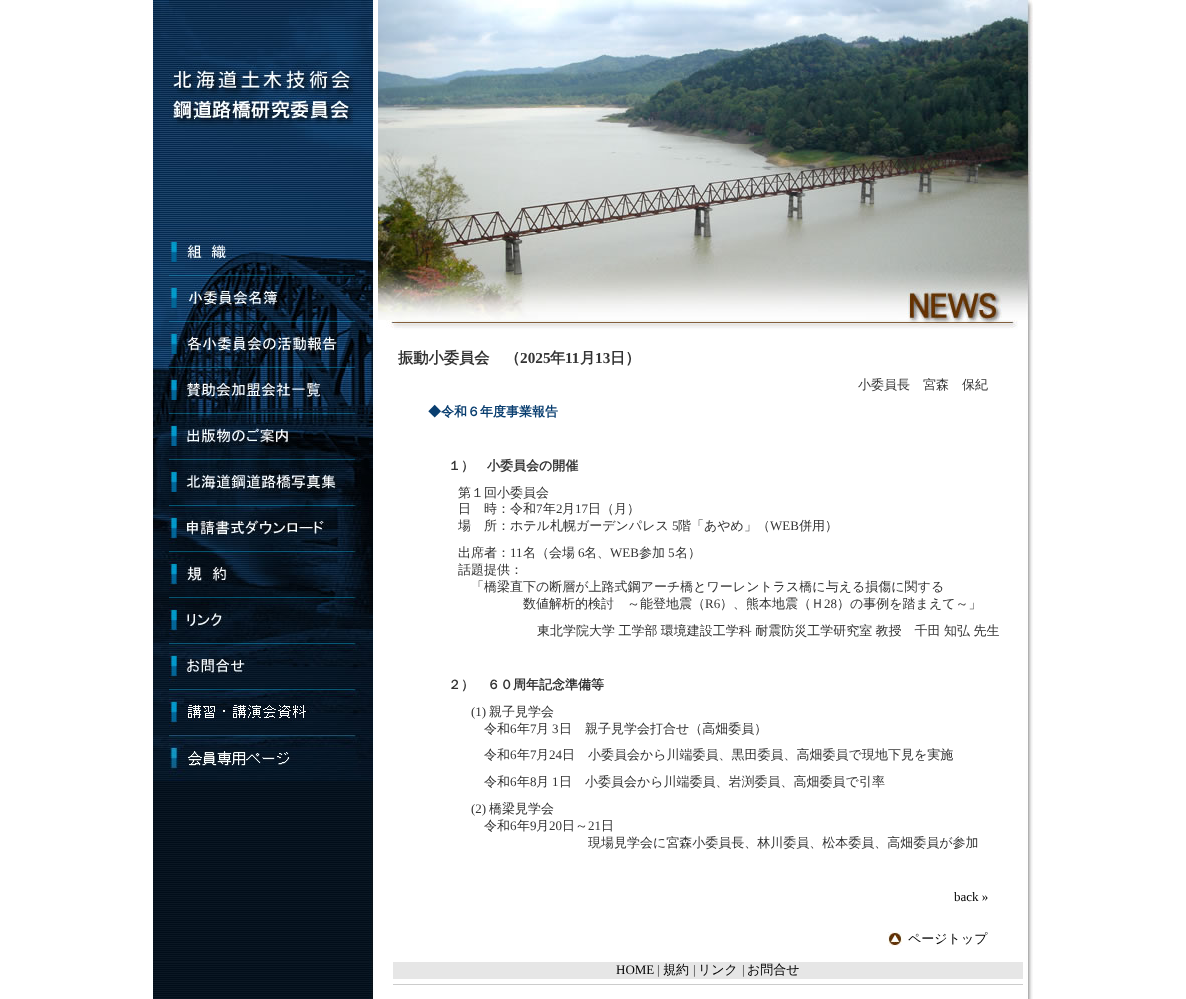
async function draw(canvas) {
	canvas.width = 1186;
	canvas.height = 999;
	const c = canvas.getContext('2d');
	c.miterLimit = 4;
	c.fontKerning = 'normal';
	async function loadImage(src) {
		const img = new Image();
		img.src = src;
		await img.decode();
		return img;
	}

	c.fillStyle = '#fff';
	c.fillRect(0, 0, 1186, 999);
	c.drawImage(await loadImage('img1.png'), 153, 0, 880, 999);
	c.drawImage(await loadImage('img2.png'), 153, 0, 220, 230);
	c.drawImage(await loadImage('img3.png'), 153, 230, 220, 46);
	c.drawImage(await loadImage('img4.png'), 153, 276, 220, 46);
	c.drawImage(await loadImage('img5.png'), 153, 322, 220, 46);
	c.drawImage(await loadImage('img6.png'), 153, 368, 220, 46);
	c.drawImage(await loadImage('img7.png'), 153, 414, 220, 46);
	c.drawImage(await loadImage('img8.png'), 153, 460, 220, 45);
	c.drawImage(await loadImage('img9.png'), 153, 505, 220, 46);
	c.drawImage(await loadImage('img10.png'), 153, 551, 220, 46);
	c.drawImage(await loadImage('img11.png'), 153, 597, 220, 46);
	c.drawImage(await loadImage('img12.png'), 153, 643, 220, 46);
	c.drawImage(await loadImage('img13.png'), 153, 689, 220, 46);
	c.drawImage(await loadImage('img14.png'), 153, 735, 220, 46);
	c.drawImage(await loadImage('img15.png'), 378, 0, 655, 330);
	c.font = 'bold 15.25px WenQuanYi Zen Hei';
	c.fillStyle = '#333';
	c.fillText('振動小委員会　（', 398, 363);
	c.font = 'bold 15.25px Liberation Serif';
	c.fillText('2025', 520, 363);
	c.font = 'bold 15.25px WenQuanYi Zen Hei';
	c.fillText('年', 550, 363);
	c.font = 'bold 15.25px Liberation Serif';
	c.fillText('11', 565, 363);
	c.font = 'bold 15.25px WenQuanYi Zen Hei';
	c.fillText('月', 580, 363);
	c.font = 'bold 15.25px Liberation Serif';
	c.fillText('13', 595, 363);
	c.font = 'bold 15.25px WenQuanYi Zen Hei';
	c.fillText('日）', 610, 363);
	c.font = '500 13px WenQuanYi Zen Hei';
	c.fillText('小委員長　宮森　保紀', 858, 389);
	c.font = 'bold 13px WenQuanYi Zen Hei';
	c.fillStyle = '#093e70';
	c.fillText('◆令和６年度事業報告', 428, 416);
	c.fillStyle = '#333';
	c.fillText('１）　小委員会の開催', 448, 470);
	c.font = '500 13px WenQuanYi Zen Hei';
	c.fillText('第１回小委員会', 458, 497);
	c.fillText('日　時：令和', 458, 513);
	c.font = '13px Liberation Serif';
	c.fillText('7', 536, 513);
	c.font = '500 13px WenQuanYi Zen Hei';
	c.fillText('年', 543, 513);
	c.font = '13px Liberation Serif';
	c.fillText('2', 556, 513);
	c.font = '500 13px WenQuanYi Zen Hei';
	c.fillText('月', 562, 513);
	c.font = '13px Liberation Serif';
	c.fillText('17', 575, 513);
	c.font = '500 13px WenQuanYi Zen Hei';
	c.fillText('日（月）', 588, 513);
	c.fillText('場　所：ホテル札幌ガーデンパレス', 458, 530);
	c.font = '13px Liberation Serif';
	c.fillText('5', 672, 530);
	c.font = '500 13px WenQuanYi Zen Hei';
	c.fillText('階「あやめ」（', 678, 530);
	c.font = '13px Liberation Serif';
	c.fillText('WEB', 770, 530);
	c.font = '500 13px WenQuanYi Zen Hei';
	c.fillText('併用）', 799, 530);
	c.fillText('出席者：', 458, 557);
	c.font = '13px Liberation Serif';
	c.fillText('11', 510, 557);
	c.font = '500 13px WenQuanYi Zen Hei';
	c.fillText('名（会場', 523, 557);
	c.font = '13px Liberation Serif';
	c.fillText('6', 578, 557);
	c.font = '500 13px WenQuanYi Zen Hei';
	c.fillText('名、', 584, 557);
	c.font = '13px Liberation Serif';
	c.fillText('WEB', 610, 557);
	c.font = '500 13px WenQuanYi Zen Hei';
	c.fillText('参加', 639, 557);
	c.font = '13px Liberation Serif';
	c.fillText('5', 668, 557);
	c.font = '500 13px WenQuanYi Zen Hei';
	for (const [text, x, y] of [
		['名）', 675, 557],
		['話題提供：', 458, 574],
		['「橋梁直下の断層が上路式鋼アーチ橋とワーレントラス橋に与える損傷に関する', 471, 591],
		['数値解析的検討　～能登地震（', 523, 608],
	]) {
		c.fillText(text, x, y);
	}
	c.font = '13px Liberation Serif';
	c.fillText('R6', 705, 608);
	c.font = '500 13px WenQuanYi Zen Hei';
	c.fillText('）、熊本地震（Ｈ', 720, 608);
	c.font = '13px Liberation Serif';
	c.fillText('28', 824, 608);
	c.font = '500 13px WenQuanYi Zen Hei';
	c.fillText('）の事例を踏まえて～」', 837, 608);
	c.wordSpacing = '-0.5px';
	c.fillText('東北学院大学 工学部 環境建設工学科 耐震防災工学研究室 教授　千田 知弘 先生', 537, 635);
	c.wordSpacing = '0px';
	c.font = 'bold 13px WenQuanYi Zen Hei';
	c.fillText('２）　６０周年記念準備等', 448, 689);
	c.font = '13px Liberation Serif';
	c.fillText('(1)', 471, 716);
	c.font = '500 13px WenQuanYi Zen Hei';
	c.fillText('親子見学会', 489, 716);
	c.fillText('令和', 484, 733);
	c.font = '13px Liberation Serif';
	c.fillText('6', 510, 733);
	c.font = '500 13px WenQuanYi Zen Hei';
	c.fillText('年', 517, 733);
	c.font = '13px Liberation Serif';
	c.fillText('7', 530, 733);
	c.font = '500 13px WenQuanYi Zen Hei';
	c.fillText('月', 536, 733);
	c.font = '13px Liberation Serif';
	c.fillText('3', 552, 733);
	c.font = '500 13px WenQuanYi Zen Hei';
	c.fillText('日　親子見学会打合せ（高畑委員）', 559, 733);
	c.fillText('令和', 484, 759);
	c.font = '13px Liberation Serif';
	c.fillText('6', 510, 759);
	c.font = '500 13px WenQuanYi Zen Hei';
	c.fillText('年', 517, 759);
	c.font = '13px Liberation Serif';
	c.fillText('7', 530, 759);
	c.font = '500 13px WenQuanYi Zen Hei';
	c.fillText('月', 536, 759);
	c.font = '13px Liberation Serif';
	c.fillText('24', 549, 759);
	c.font = '500 13px WenQuanYi Zen Hei';
	c.fillText('日　小委員会から川端委員、黒田委員、高畑委員で現地下見を実施', 562, 759);
	c.fillText('令和', 484, 786);
	c.font = '13px Liberation Serif';
	c.fillText('6', 510, 786);
	c.font = '500 13px WenQuanYi Zen Hei';
	c.fillText('年', 517, 786);
	c.font = '13px Liberation Serif';
	c.fillText('8', 530, 786);
	c.font = '500 13px WenQuanYi Zen Hei';
	c.fillText('月', 536, 786);
	c.font = '13px Liberation Serif';
	c.fillText('1', 552, 786);
	c.font = '500 13px WenQuanYi Zen Hei';
	c.fillText('日　小委員会から川端委員、岩渕委員、高畑委員で引率', 559, 786);
	c.font = '13px Liberation Serif';
	c.fillText('(2)', 471, 813);
	c.font = '500 13px WenQuanYi Zen Hei';
	c.fillText('橋梁見学会', 489, 813);
	c.fillText('令和', 484, 830);
	c.font = '13px Liberation Serif';
	c.fillText('6', 510, 830);
	c.font = '500 13px WenQuanYi Zen Hei';
	c.fillText('年', 517, 830);
	c.font = '13px Liberation Serif';
	c.fillText('9', 530, 830);
	c.font = '500 13px WenQuanYi Zen Hei';
	c.fillText('月', 536, 830);
	c.font = '13px Liberation Serif';
	c.fillText('20', 549, 830);
	c.font = '500 13px WenQuanYi Zen Hei';
	c.fillText('日～', 562, 830);
	c.font = '13px Liberation Serif';
	c.fillText('21', 588, 830);
	c.font = '500 13px WenQuanYi Zen Hei';
	c.fillText('日', 601, 830);
	c.fillText('現場見学会に宮森小委員長、林川委員、松本委員、高畑委員が参加', 588, 847);
	c.font = '13px Liberation Serif';
	c.fillStyle = '#000';
	c.fillText('back »', 954, 901);
	c.drawImage(await loadImage('img16.png'), 888, 932, 14, 14);
	c.font = '500 13px WenQuanYi Zen Hei';
	c.fillText('ページトップ', 908, 943);
	c.drawImage(await loadImage('img17.png'), 153, 962, 220, 37);
	c.fillStyle = '#e6e6e6';
	c.fillRect(393, 962, 630, 17);
	c.font = '13px Liberation Serif';
	c.fillStyle = '#000';
	c.fillText('HOME', 616, 974);
	c.fillStyle = '#333';
	c.fillText('|', 657, 974);
	c.font = '500 13px WenQuanYi Zen Hei';
	c.fillStyle = '#000';
	c.fillText('規約', 663, 974);
	c.font = '13px Liberation Serif';
	c.fillStyle = '#333';
	c.fillText('|', 693, 974);
	c.font = '500 13px WenQuanYi Zen Hei';
	c.fillStyle = '#000';
	c.fillText('リンク', 698, 974);
	c.font = '13px Liberation Serif';
	c.fillStyle = '#333';
	c.fillText('|', 742, 974);
	c.font = '500 13px WenQuanYi Zen Hei';
	c.fillStyle = '#000';
	c.fillText('お問合せ', 747, 974);
	c.fillStyle = '#ccc';
	c.fillRect(393, 984, 630, 1);
}

draw(document.querySelector('canvas'));
